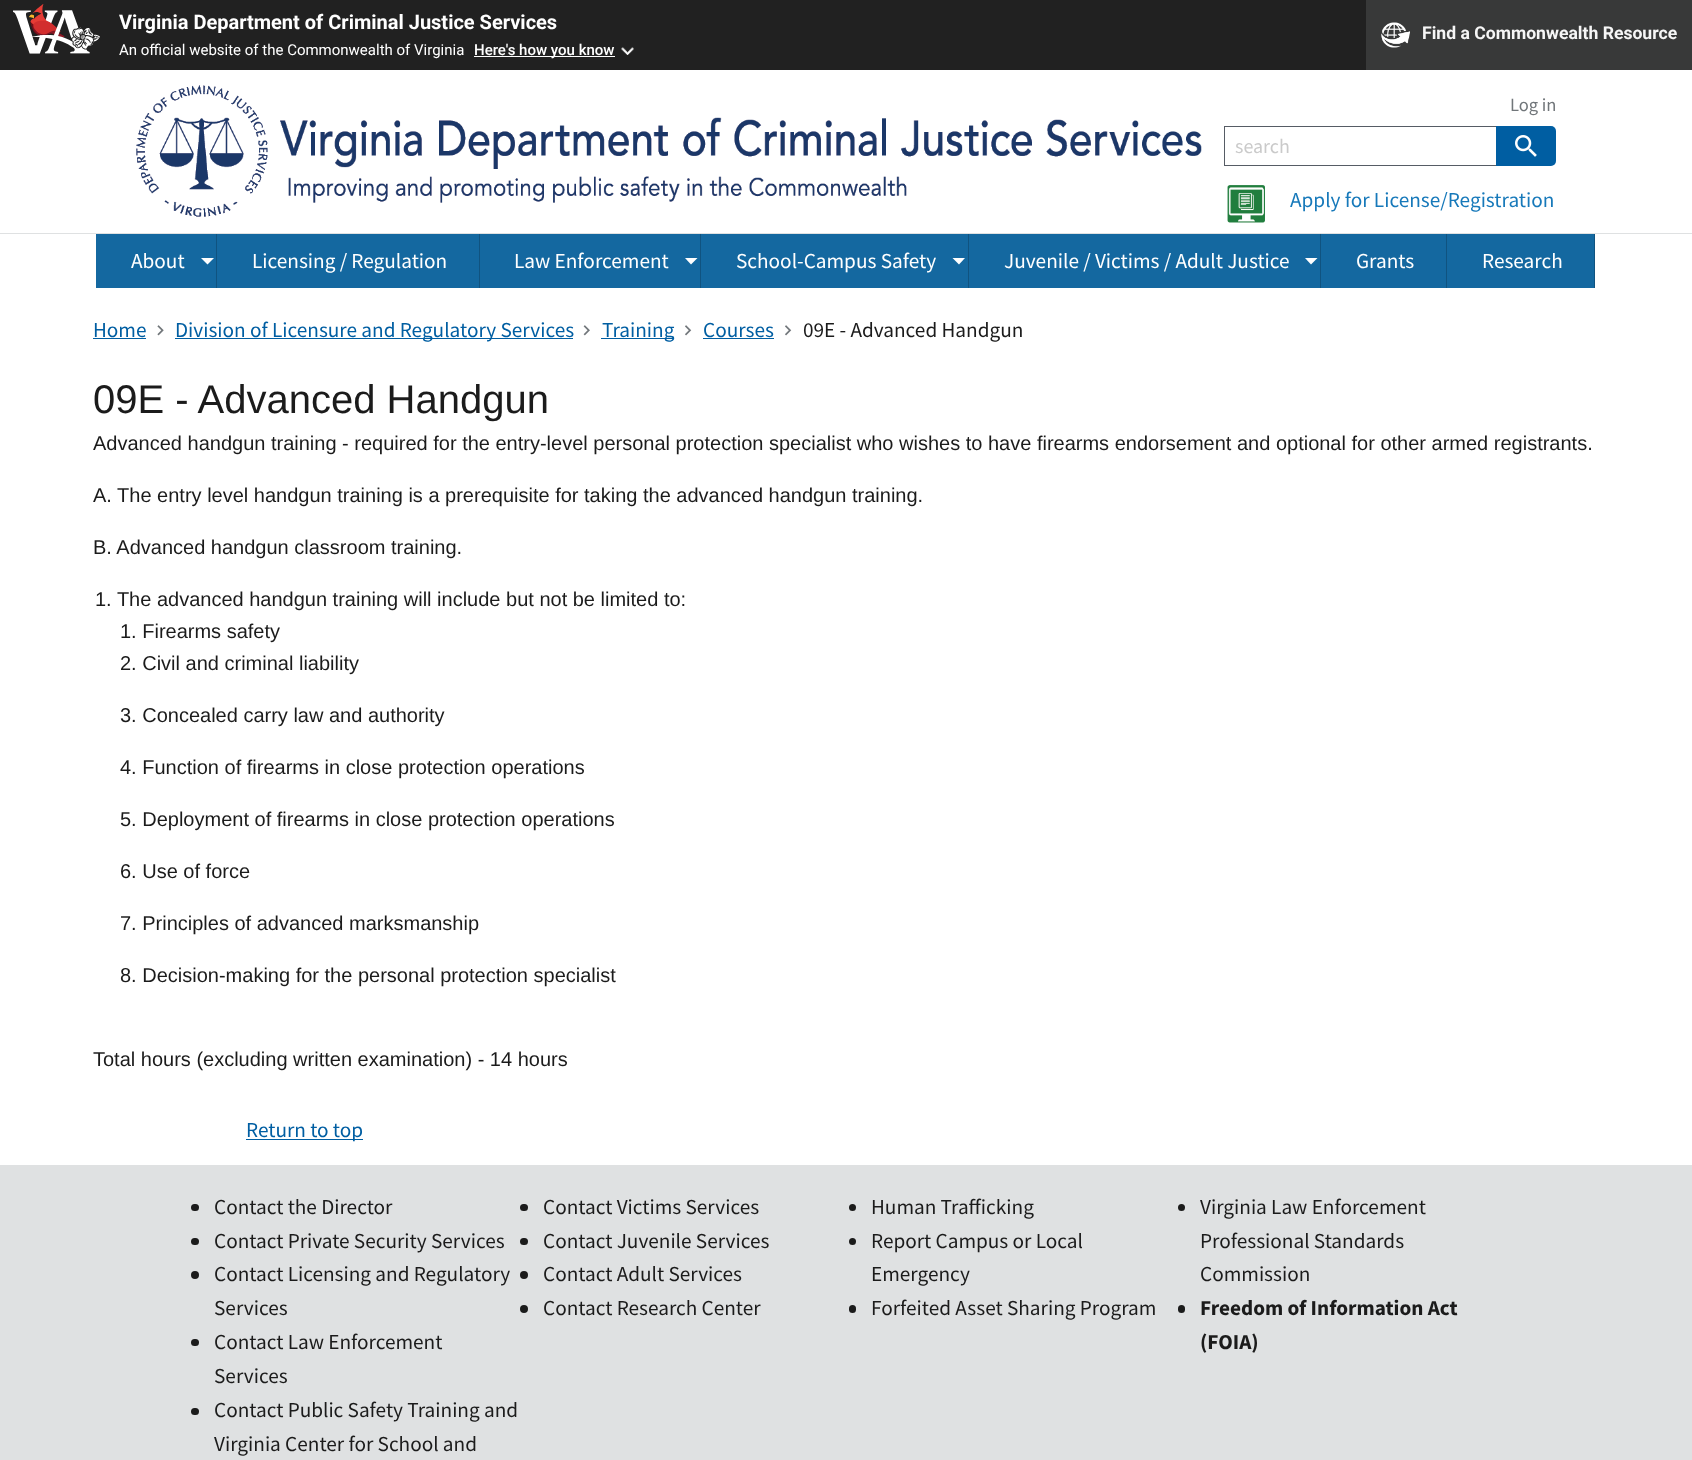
async function draw(canvas) {
	canvas.width = 1692;
	canvas.height = 1460;
	const c = canvas.getContext('2d');
	c.miterLimit = 4;
	c.fontKerning = 'normal';
	async function loadImage(src) {
		const img = new Image();
		img.src = src;
		await img.decode();
		return img;
	}

	c.fillStyle = '#fff';
	c.fillRect(0, 0, 1692, 1460);
	c.fillStyle = '#212121';
	c.fillRect(0, 0, 1366, 70);
	c.drawImage(await loadImage('img1.png'), 13, 4, 87, 50);
	c.font = 'bold 20px Roboto';
	c.fillStyle = '#fff';
	c.fillText('Virginia Department of Criminal Justice Services', 119, 29);
	c.font = '15px Roboto';
	c.fillText('An official website of the Commonwealth of Virginia', 119, 55);
	c.fillRect(474, 56, 141, 1);
	c.font = '500 15px Roboto';
	c.fillText('Here\'s how you know', 474, 55);
	c.drawImage(await loadImage('img2.png'), 621, 47, 13, 8);
	c.fillStyle = '#383939';
	c.fillRect(1366, 0, 326, 70);
	c.drawImage(await loadImage('img3.png'), 1381, 22, 29, 26);
	c.font = 'bold 17.6px Roboto';
	c.fillStyle = '#f6f6f6';
	c.fillText('Find a Commonwealth Resource', 1422, 39);
	c.fillStyle = '#dfe1e2';
	c.fillRect(0, 233, 1692, 1);
	c.font = '18.5px Source Sans Pro';
	c.fillStyle = '#71767a';
	c.fillText('Log in', 1510, 111);
	c.fillStyle = '#1468a0';
	c.fillRect(96, 234, 383, 54);
	c.fillStyle = '#105380';
	c.fillRect(216, 234, 1, 54);
	c.font = '21.25px Source Sans Pro';
	c.fillStyle = '#fff';
	c.fillText('About', 131, 268);
	c.beginPath();
	c.moveTo(201, 258);
	c.lineTo(214, 258);
	c.lineTo(207.5, 264.5);
	c.closePath();
	c.fill();
	c.fillStyle = '#105380';
	c.fillRect(479, 234, 1, 54);
	c.fillStyle = '#fff';
	c.fillText('Licensing / Regulation', 252, 268);
	c.fillStyle = '#1468a0';
	c.fillRect(480, 234, 220, 54);
	c.fillStyle = '#105380';
	c.fillRect(700, 234, 1, 54);
	c.fillStyle = '#fff';
	c.fillText('Law Enforcement', 514, 268);
	c.beginPath();
	c.moveTo(685, 258);
	c.lineTo(697.5, 258);
	c.lineTo(691, 264.5);
	c.closePath();
	c.fill();
	c.fillStyle = '#1468a0';
	c.fillRect(701, 234, 267, 54);
	c.fillStyle = '#105380';
	c.fillRect(968, 234, 1, 54);
	c.fillStyle = '#fff';
	c.fillText('School-Campus Safety', 736, 268);
	c.beginPath();
	c.moveTo(952.5, 258);
	c.lineTo(965, 258);
	c.lineTo(959, 264.5);
	c.closePath();
	c.fill();
	c.fillStyle = '#1468a0';
	c.fillRect(969, 234, 351, 54);
	c.fillStyle = '#105380';
	c.fillRect(1320, 234, 1, 54);
	c.fillStyle = '#fff';
	c.fillText('Juvenile / Victims / Adult Justice', 1004, 268);
	c.beginPath();
	c.moveTo(1305, 258);
	c.lineTo(1317.5, 258);
	c.lineTo(1311, 264.5);
	c.closePath();
	c.fill();
	c.fillStyle = '#1468a0';
	c.fillRect(1321, 234, 273, 54);
	c.fillStyle = '#105380';
	c.fillRect(1446, 234, 1, 54);
	c.fillStyle = '#fff';
	c.fillText('Grants', 1356, 268);
	c.fillStyle = '#105380';
	c.fillRect(1594, 234, 1, 54);
	c.fillStyle = '#fff';
	c.fillText('Research', 1482, 268);
	c.drawImage(await loadImage('img4.png'), 136, 85, 1066, 132);
	for (const [x, y, w, h, color] of [
		[1224, 126, 272, 1, '#565c65'],
		[1224, 165, 272, 1, '#565c65'],
		[1224, 126, 1, 40, '#565c65'],
	]) {
		c.fillStyle = color;
		c.fillRect(x, y, w, h);
	}
	c.font = '20px Source Sans Pro';
	c.fillStyle = '#cacaca';
	c.fillText('search', 1235, 153);
	c.fillStyle = '#005ea2';
	c.beginPath();
	c.roundRect(1496, 126, 60, 40, [0, 5, 5, 0]);
	c.fill();
	c.drawImage(await loadImage('img5.png'), 1515, 135, 22, 22);
	c.drawImage(await loadImage('img6.png'), 1227, 185, 38, 38);
	c.font = '21.25px Source Sans Pro';
	c.fillStyle = '#1779ba';
	c.fillText('Apply for License/Registration', 1290, 207);
	c.fillStyle = '#005ea2';
	c.fillText('Home', 93, 337);
	c.fillRect(93, 338, 53, 1);
	c.drawImage(await loadImage('img7.png'), 157, 325, 7, 11);
	c.fillRect(175, 338, 398, 1);
	c.fillText('Division of Licensure and Regulatory Services', 175, 337);
	c.drawImage(await loadImage('img8.png'), 583, 325, 7, 11);
	c.fillRect(601, 338, 73, 1);
	c.fillText('Training', 602, 337);
	c.drawImage(await loadImage('img9.png'), 685, 325, 7, 11);
	c.fillText('Courses', 703, 337);
	c.fillRect(703, 338, 71, 1);
	c.drawImage(await loadImage('img9.png'), 785, 325, 7, 11);
	c.fillStyle = '#1b1b1b';
	c.fillText('09E - Advanced Handgun', 803, 337);
	c.font = '40px Liberation Sans';
	c.fillText('09E - Advanced Handgun', 93, 413);
	c.font = '20px Liberation Sans';
	for (const [text, x, y] of [
		['Advanced handgun training - required for the entry-level personal protection specialist who wishes to have firearms endorsement and optional for other armed registrants.', 93, 450],
		['A. The entry level handgun training is a prerequisite for taking the advanced handgun training.', 93, 502],
		['B. Advanced handgun classroom training.', 93, 554],
		['1. The advanced handgun training will include but not be limited to:', 95, 606],
		['1. Firearms safety', 120, 638],
		['2. Civil and criminal liability', 120, 670],
		['3. Concealed carry law and authority', 120, 722],
		['4. Function of firearms in close protection operations', 120, 774],
		['5. Deployment of firearms in close protection operations', 120, 826],
		['6. Use of force', 120, 878],
		['7. Principles of advanced marksmanship', 120, 930],
		['8. Decision-making for the personal protection specialist', 120, 982],
		['Total hours (excluding written examination) - 14 hours', 93, 1066],
	]) {
		c.fillText(text, x, y);
	}
	c.fillStyle = '#005ea2';
	c.fillRect(246, 1139, 117, 1);
	c.font = '21.25px Source Sans Pro';
	c.fillText('Return to top', 246, 1137);
	c.fillStyle = '#dfe1e2';
	c.fillRect(0, 1165, 1692, 295);
	c.fillStyle = '#1b1b1b';
	c.beginPath();
	c.roundRect(191, 1204, 8, 7, 3.5);
	c.fill();
	c.fillText('Contact the Director', 214, 1214);
	c.beginPath();
	c.roundRect(191, 1238, 8, 7, 3.5);
	c.fill();
	c.fillText('Contact Private Security Services', 214, 1248);
	c.beginPath();
	c.arc(195, 1275, 4, 0, 2 * Math.PI);
	c.fill();
	c.fillText('Contact Licensing and Regulatory', 214, 1281);
	c.fillText('Services', 214, 1315);
	c.beginPath();
	c.roundRect(191, 1339, 8, 7, 3.5);
	c.fill();
	c.fillText('Contact Law Enforcement', 214, 1349);
	c.fillText('Services', 214, 1383);
	c.beginPath();
	c.roundRect(191, 1408, 8, 7, 3.5);
	c.fill();
	c.fillText('Contact Public Safety Training and', 214, 1417);
	c.fillText('Virginia Center for School and', 214, 1451);
	c.beginPath();
	c.roundRect(520, 1204, 8, 7, 3.5);
	c.fill();
	c.fillText('Contact Victims Services', 543, 1214);
	c.beginPath();
	c.roundRect(520, 1238, 8, 7, 3.5);
	c.fill();
	c.fillText('Contact Juvenile Services', 543, 1248);
	c.beginPath();
	c.arc(524, 1275, 4, 0, 2 * Math.PI);
	c.fill();
	c.fillText('Contact Adult Services', 543, 1281);
	c.beginPath();
	c.arc(524, 1309, 4, 0, 2 * Math.PI);
	c.fill();
	c.fillText('Contact Research Center', 543, 1315);
	c.beginPath();
	c.arc(852.5, 1207.5, 3.5, 0, 2 * Math.PI);
	c.fill();
	c.fillText('Human Trafficking', 871, 1214);
	c.beginPath();
	c.arc(852.5, 1241.5, 3.5, 0, 2 * Math.PI);
	c.fill();
	c.fillText('Report Campus or Local', 871, 1248);
	c.fillText('Emergency', 871, 1281);
	c.beginPath();
	c.roundRect(849, 1305, 7, 8, 3.5);
	c.fill();
	c.fillText('Forfeited Asset Sharing Program', 871, 1315);
	c.beginPath();
	c.arc(1181.5, 1207.5, 3.5, 0, 2 * Math.PI);
	c.fill();
	for (const [text, x, y] of [
		['Virginia Law Enforcement', 1200, 1214],
		['Professional Standards', 1200, 1248],
		['Commission', 1200, 1281],
	]) {
		c.fillText(text, x, y);
	}
	c.beginPath();
	c.roundRect(1178, 1305, 7, 8, 3.5);
	c.fill();
	c.font = 'bold 21.25px Source Sans Pro';
	c.fillText('Freedom of Information Act', 1200, 1315);
	c.fillText('(FOIA)', 1200, 1349);
}

draw(document.querySelector('canvas'));
